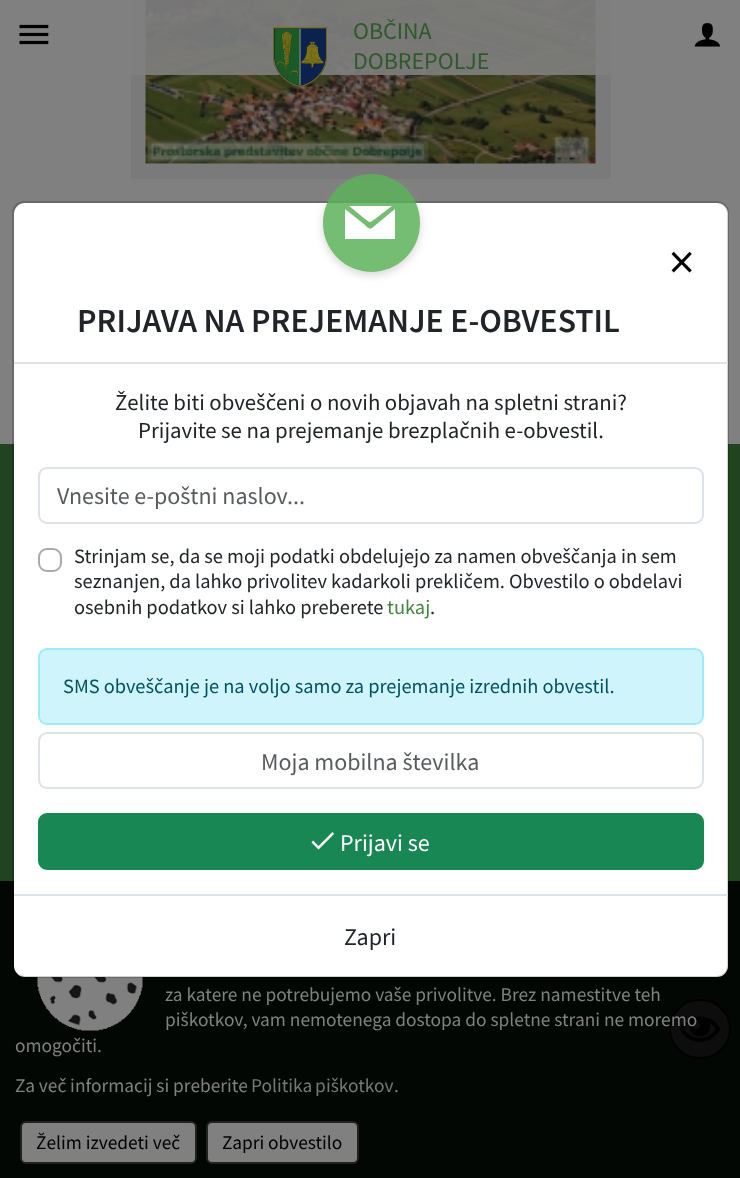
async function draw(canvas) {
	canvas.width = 740;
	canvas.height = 1178;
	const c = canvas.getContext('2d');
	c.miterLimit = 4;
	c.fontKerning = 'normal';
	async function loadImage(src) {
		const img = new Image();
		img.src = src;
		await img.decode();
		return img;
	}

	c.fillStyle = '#808080';
	c.fillRect(0, 0, 740, 1178);
	c.fillStyle = '#7a7a7b';
	c.fillRect(131, 0, 480, 179);
	c.drawImage(await loadImage('img3.png'), 145, 0, 451, 164);
	c.fillStyle = '#808080e6';
	c.fillRect(131, 0, 480, 75);
	c.drawImage(await loadImage('img1.png'), 19, 24, 30, 21);
	c.drawImage(await loadImage('img2.png'), 694, 23, 26, 24);
	c.drawImage(await loadImage('img4.png'), 273, 26, 54, 61);
	c.font = '24px Source Sans Pro';
	c.fillStyle = '#2f592d';
	c.fillText('OBČINA', 353, 39);
	c.fillText('DOBREPOLJE', 353, 69);
	c.fillStyle = '#214320';
	c.fillRect(0, 444, 740, 437);
	c.fillStyle = '#030703';
	c.fillRect(0, 881, 740, 297);
	c.drawImage(await loadImage('img5.png'), 37, 977, 106, 54);
	c.font = '19.4px Source Sans Pro';
	c.fillStyle = '#808080';
	c.fillText('za katere ne potrebujemo vaše privolitve. Brez namestitve teh', 165, 1001);
	c.fillStyle = '#0d0d0d';
	c.beginPath();
	c.roundRect(670, 1000, 60, 58, 29);
	c.fill();
	c.strokeStyle = '#010101';
	c.lineWidth = 2;
	c.stroke();
	c.drawImage(await loadImage('img6.png'), 679, 1016, 42, 26);
	c.fillStyle = '#808080';
	for (const [text, x, y] of [
		['piškotkov, vam nemotenega dostopa do spletne strani ne moremo', 165, 1026],
		['omogočiti.', 15, 1052],
		['Za več informacij si preberite', 15, 1092],
	]) {
		c.fillText(text, x, y);
	}
	c.wordSpacing = '-1px';
	c.fillStyle = '#777';
	c.fillText('Politika piškotkov', 251, 1092);
	c.wordSpacing = '0px';
	c.fillStyle = '#808080';
	c.fillText('.', 394, 1092);
	c.beginPath();
	c.roundRect(21, 1122, 175, 41, 5);
	c.fill();
	c.strokeStyle = '#222';
	c.stroke();
	c.fillStyle = '#000';
	c.fillText('Želim izvedeti več', 36, 1149);
	c.fillStyle = '#808080';
	c.beginPath();
	c.roundRect(207, 1122, 151, 41, 5);
	c.fill();
	c.stroke();
	c.fillStyle = '#000';
	c.fillText('Zapri obvestilo', 222, 1149);
	c.fillStyle = '#fff';
	c.beginPath();
	c.roundRect(14, 203, 714, 774, 11);
	c.fill();
	c.beginPath();
	c.roundRect(13, 202, 715, 775, 11);
	c.strokeStyle = '#0000002e';
	c.stroke();
	c.fillStyle = '#dee2e6';
	c.fillRect(14, 362, 714, 2);
	c.save();
	c.beginPath();
	c.moveTo(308, 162);
	c.lineTo(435, 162);
	c.lineTo(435, 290);
	c.lineTo(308, 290);
	c.closePath();
	c.moveTo(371.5, 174);
	c.bezierCurveTo(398.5, 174, 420, 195.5, 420, 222.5);
	c.lineTo(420, 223.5);
	c.bezierCurveTo(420, 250.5, 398.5, 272, 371.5, 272);
	c.bezierCurveTo(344.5, 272, 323, 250.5, 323, 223.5);
	c.lineTo(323, 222.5);
	c.bezierCurveTo(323, 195.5, 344.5, 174, 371.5, 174);
	c.closePath();
	c.clip('evenodd');
	c.fillStyle = '#96969666';
	c.filter = 'blur(4.5px)';
	c.beginPath();
	c.roundRect(323, 177, 97, 98, 48.5);
	c.fill();
	c.filter = 'none';
	c.restore();
	c.fillStyle = '#5db15ad9';
	c.beginPath();
	c.roundRect(323, 174, 97, 98, 48.5);
	c.fill();
	c.fillStyle = '#fff';
	c.beginPath();
	c.moveTo(372, 228);
	c.bezierCurveTo(369, 230, 366, 226, 365, 225);
	c.lineTo(345, 209);
	c.lineTo(345, 239);
	c.lineTo(395, 239);
	c.lineTo(395, 209);
	c.closePath();
	c.moveTo(370, 222);
	c.bezierCurveTo(372, 222, 389, 208, 392, 206);
	c.lineTo(349, 206);
	c.bezierCurveTo(352, 208, 368, 222, 370, 222);
	c.closePath();
	c.fill();
	c.font = '51px Source Sans Pro';
	c.fillStyle = '#000';
	c.fillText('×', 669, 279);
	c.font = '600 33.6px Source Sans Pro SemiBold';
	c.fillStyle = '#212529';
	c.fillText('PRIJAVA NA PREJEMANJE E-OBVESTIL', 77, 332);
	c.font = '22.8px Source Sans Pro';
	c.fillText('Želite biti obveščeni o novih objavah na spletni strani?', 115, 410);
	c.fillText('Prijavite se na prejemanje brezplačnih e-obvestil.', 138, 438);
	c.beginPath();
	c.roundRect(39, 468, 664, 55, 8);
	c.strokeStyle = '#dee2e6';
	c.stroke();
	c.font = '24px Source Sans Pro';
	c.fillStyle = '#595c5f';
	c.fillText('Vnesite e-poštni naslov...', 57, 504);
	c.beginPath();
	c.roundRect(39, 549, 22, 22, 8);
	c.strokeStyle = '#aaa';
	c.stroke();
	c.font = '20.4px Source Sans Pro';
	c.fillStyle = '#212529';
	for (const [text, x, y] of [
		['Strinjam se, da se moji podatki obdelujejo za namen obveščanja in sem', 74, 563],
		['seznanjen, da lahko privolitev kadarkoli prekličem. Obvestilo o obdelavi', 74, 588],
		['osebnih podatkov si lahko preberete', 74, 614],
	]) {
		c.fillText(text, x, y);
	}
	c.fillStyle = '#41853f';
	c.fillText('tukaj', 387, 614);
	c.fillStyle = '#212529';
	c.fillText('.', 430, 614);
	c.fillStyle = '#cff4fc';
	c.beginPath();
	c.roundRect(39, 649, 664, 75, 8);
	c.fill();
	c.strokeStyle = '#9eeaf9';
	c.stroke();
	c.fillStyle = '#055160';
	c.fillText('SMS obveščanje je na voljo samo za prejemanje izrednih obvestil.', 63, 693);
	c.beginPath();
	c.roundRect(39, 733, 664, 55, 8);
	c.strokeStyle = '#dee2e6';
	c.stroke();
	c.font = '24px Source Sans Pro';
	c.fillStyle = '#595c5f';
	c.fillText('Moja mobilna številka', 261, 770);
	c.fillStyle = '#198754';
	c.beginPath();
	c.roundRect(39, 814, 664, 55, 8);
	c.fill();
	c.strokeStyle = '#198754';
	c.stroke();
	c.fillStyle = '#fff';
	c.beginPath();
	c.moveTo(318.5, 846);
	c.lineTo(332.5, 832);
	c.lineTo(334, 834);
	c.lineTo(318.5, 849.5);
	c.lineTo(311.5, 842.5);
	c.lineTo(313, 840.5);
	c.closePath();
	c.fill();
	c.fillText('Prijavi se', 340, 851);
	c.fillStyle = '#dee2e6';
	c.fillRect(14, 894, 714, 2);
	c.fillStyle = '#212529';
	c.fillText('Zapri', 344, 945);
}

draw(document.querySelector('canvas'));
